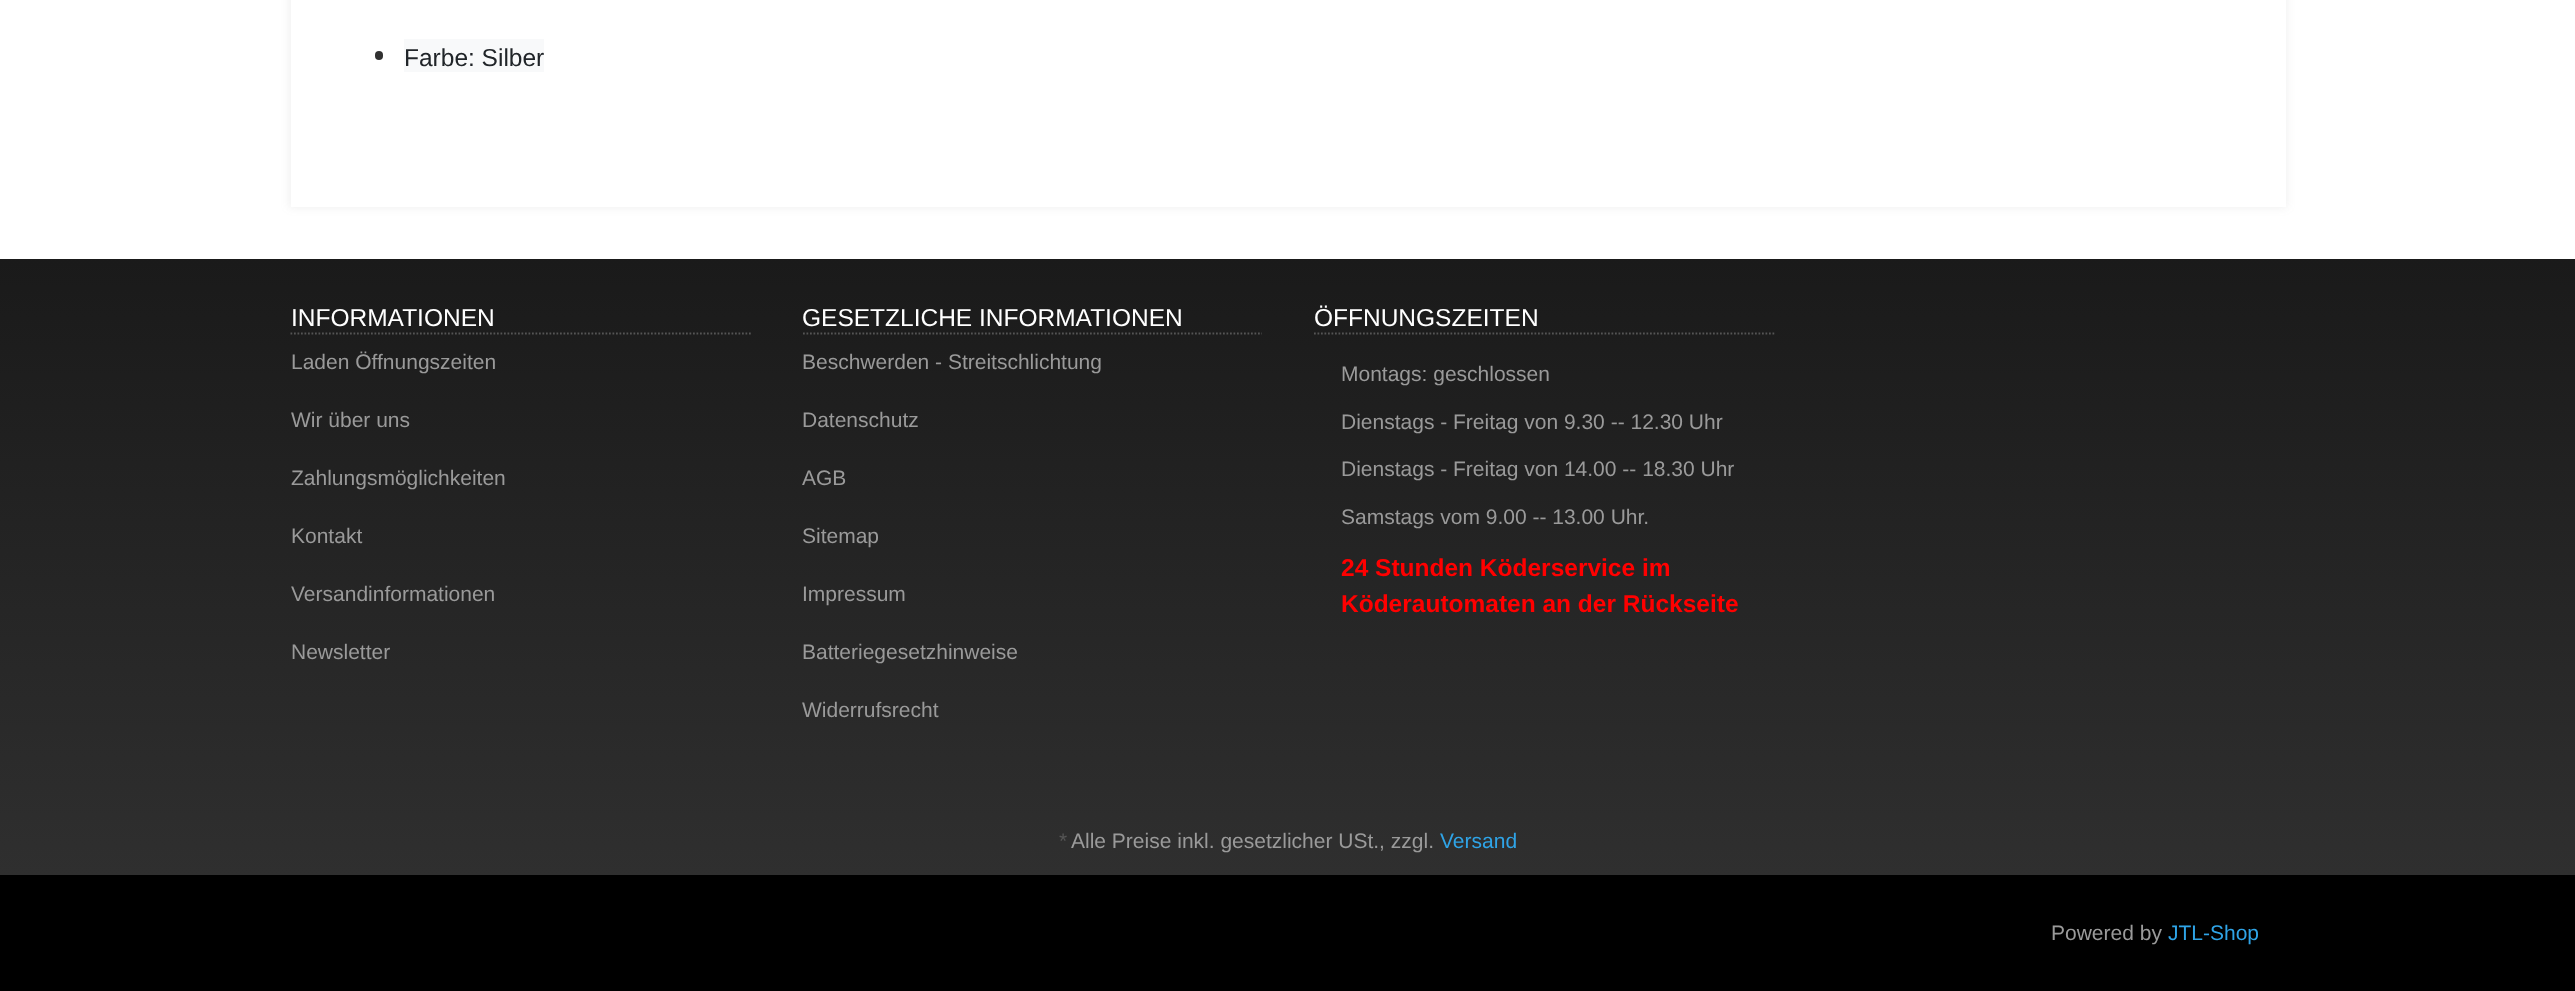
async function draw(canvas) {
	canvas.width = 2575;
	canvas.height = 991;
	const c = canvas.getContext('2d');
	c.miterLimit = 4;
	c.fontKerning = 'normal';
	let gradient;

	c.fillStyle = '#fff';
	c.fillRect(0, 0, 2575, 991);
	c.fillStyle = '#6a6a6a1a';
	c.filter = 'blur(4.5px)';
	c.beginPath();
	c.rect(289, -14, 1998, 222);
	c.fill();
	c.filter = 'none';
	c.fillStyle = '#fff';
	c.fillRect(291, 0, 1995, 207);
	c.fillStyle = '#313131';
	c.beginPath();
	c.roundRect(375, 51, 8, 9, 4);
	c.fill();
	c.fillStyle = '#f8f9fa';
	c.fillRect(404, 39, 140, 33);
	c.font = '24.5px Liberation Sans';
	c.fillStyle = '#212529';
	c.fillText('Farbe: Silber', 404, 66);
	gradient = c.createLinearGradient(1288, 259, 1288, 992);
	gradient.addColorStop(0, '#1a1a1a');
	gradient.addColorStop(1, '#333');
	c.fillStyle = gradient;
	c.fillRect(0, 259, 2575, 616);
	c.beginPath();
	c.moveTo(290.5, 333.5);
	c.lineTo(751, 333.5);
	c.strokeStyle = '#555';
	c.lineWidth = 1.8;
	c.setLineDash([1.75, 1.75]);
	c.stroke();
	c.fillStyle = '#fff';
	c.fillText('INFORMATIONEN', 291, 326);
	c.font = '21px Liberation Sans';
	c.fillStyle = '#9a9a9a';
	for (const [text, x, y] of [
		['Laden Öffnungszeiten', 291, 369],
		['Wir über uns', 291, 427],
		['Zahlungsmöglichkeiten', 291, 485],
		['Kontakt', 291, 543],
		['Versandinformationen', 291, 601],
		['Newsletter', 291, 659],
	]) {
		c.fillText(text, x, y);
	}
	c.beginPath();
	c.moveTo(803, 333.5);
	c.lineTo(1262, 333.5);
	c.stroke();
	c.font = '24.5px Liberation Sans';
	c.fillStyle = '#fff';
	c.fillText('GESETZLICHE INFORMATIONEN', 802, 326);
	c.font = '21px Liberation Sans';
	c.fillStyle = '#9a9a9a';
	for (const [text, x, y] of [
		['Beschwerden - Streitschlichtung', 802, 369],
		['Datenschutz', 802, 427],
		['AGB', 802, 485],
		['Sitemap', 802, 543],
		['Impressum', 802, 601],
		['Batteriegesetzhinweise', 802, 659],
		['Widerrufsrecht', 802, 717],
	]) {
		c.fillText(text, x, y);
	}
	c.beginPath();
	c.moveTo(1314, 333.5);
	c.lineTo(1774.5, 333.5);
	c.stroke();
	c.font = '24.5px Liberation Sans';
	c.fillStyle = '#fff';
	c.fillText('ÖFFNUNGSZEITEN', 1314, 326);
	c.font = '21px Liberation Sans';
	c.fillStyle = '#9a9a9a';
	for (const [text, x, y] of [
		['Montags: geschlossen', 1341, 381],
		['Dienstags - Freitag von 9.30 -- 12.30 Uhr', 1341, 429],
		['Dienstags - Freitag von 14.00 -- 18.30 Uhr', 1341, 476],
		['Samstags vom 9.00 -- 13.00 Uhr.', 1341, 524],
	]) {
		c.fillText(text, x, y);
	}
	c.font = 'bold 24.5px Liberation Sans';
	c.fillStyle = '#f00';
	c.fillText('24 Stunden Köderservice im', 1341, 576);
	c.fillText('Köderautomaten an der Rückseite', 1341, 612);
	c.font = '21px Liberation Sans';
	c.fillStyle = '#555';
	c.fillText('*', 1059, 848);
	c.fillStyle = '#9a9a9a';
	c.fillText('Alle Preise inkl. gesetzlicher USt., zzgl.', 1071, 848);
	c.fillStyle = '#2fa4e7';
	c.fillText('Versand', 1440, 848);
	c.fillStyle = '#000';
	c.fillRect(0, 875, 2575, 116);
	c.fillStyle = '#9a9a9a';
	c.fillText('Powered by', 2051, 940);
	c.fillStyle = '#2fa4e7';
	c.fillText('JTL-Shop', 2168, 940);
}

draw(document.querySelector('canvas'));
